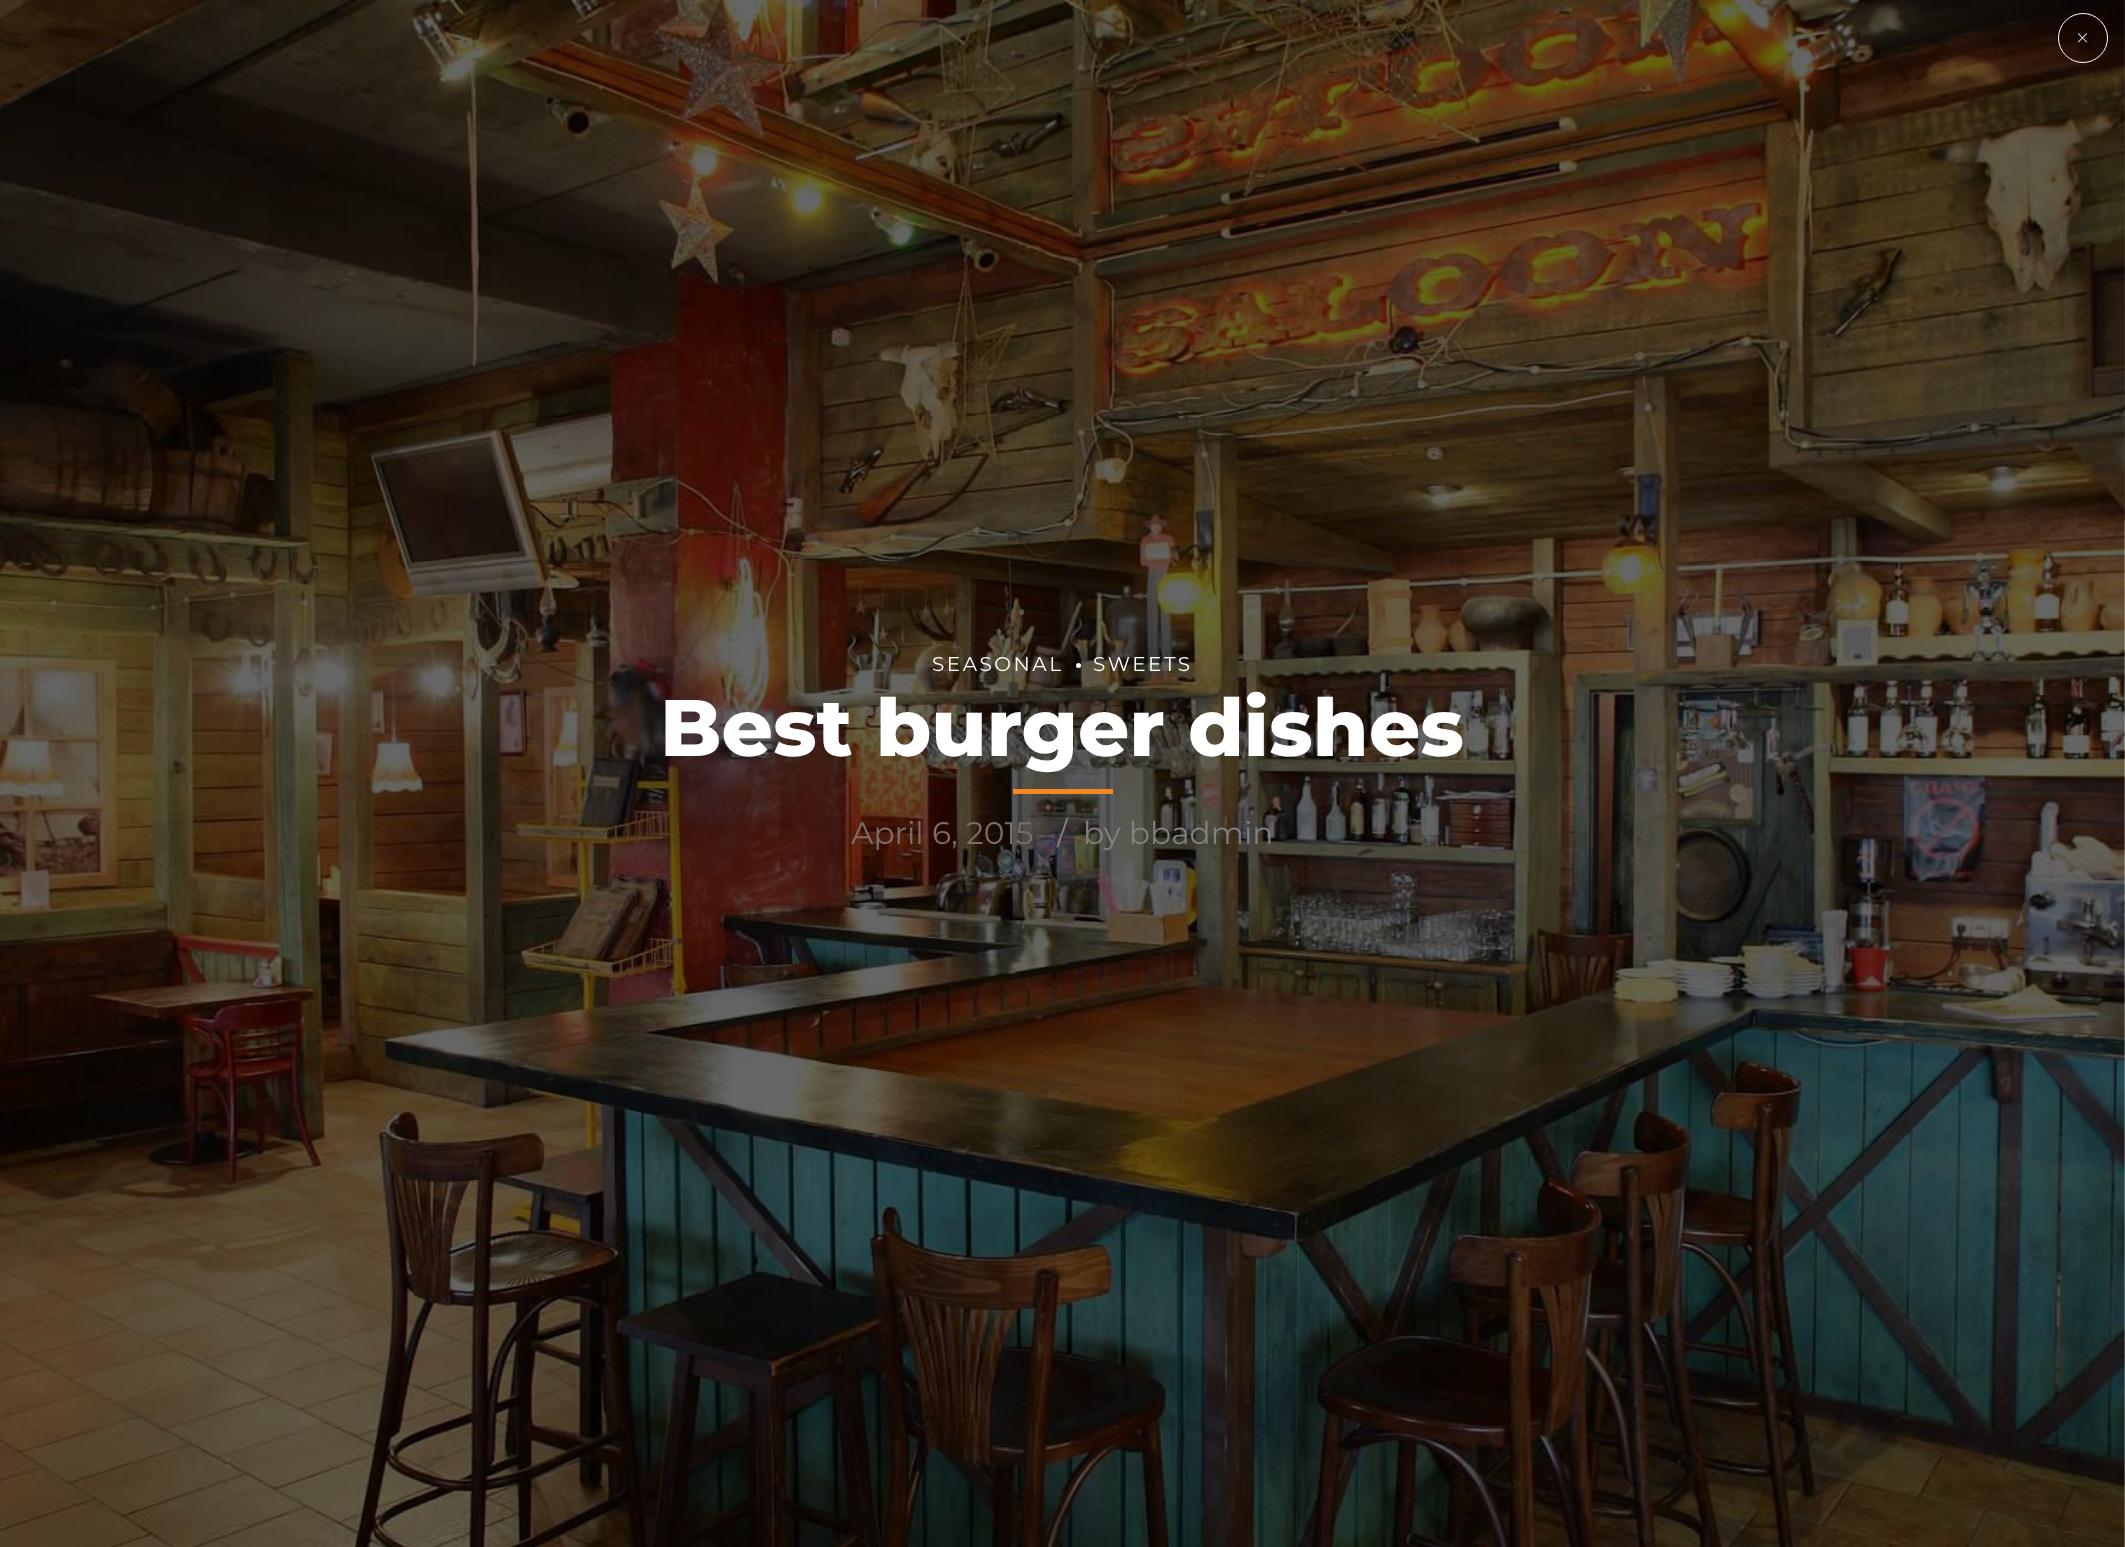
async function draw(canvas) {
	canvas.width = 2125;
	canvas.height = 1547;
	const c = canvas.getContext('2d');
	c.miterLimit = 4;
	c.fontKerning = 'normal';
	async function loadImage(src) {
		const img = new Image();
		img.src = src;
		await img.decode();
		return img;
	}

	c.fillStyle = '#fff';
	c.fillRect(0, 0, 2125, 1547);
	c.drawImage(await loadImage('img1.png'), 2124, 0, 1, 520);
	c.drawImage(await loadImage('img2.png'), 0, 0, 2125, 1547);
	c.beginPath();
	c.arc(2083, 38, 24.5, 0, 2 * Math.PI);
	c.strokeStyle = '#fff';
	c.stroke();
	c.drawImage(await loadImage('img3.png'), 2077, 33, 11, 10);
	c.letterSpacing = '2.5px';
	c.font = '20px Montserrat';
	c.fillText('SEASONAL', 932, 671);
	c.beginPath();
	c.arc(1078.5, 665.5, 2.5, 0, 2 * Math.PI);
	c.fill();
	c.fillText('SWEETS', 1093, 671);
	c.letterSpacing = '0px';
	c.font = '800 80px Montserrat';
	c.fillText('Best burger dishes', 660, 756);
	c.fillStyle = '#f6871e';
	c.fillRect(1013, 789, 100, 5);
	c.font = '31.25px Montserrat';
	c.fillStyle = '#7e6d67';
	c.fillText('April 6, 2015', 851, 844);
	c.fillStyle = '#827f81';
	c.fillText('/', 1057, 844);
	c.fillText('by bbadmin', 1083, 844);
}

draw(document.querySelector('canvas'));
